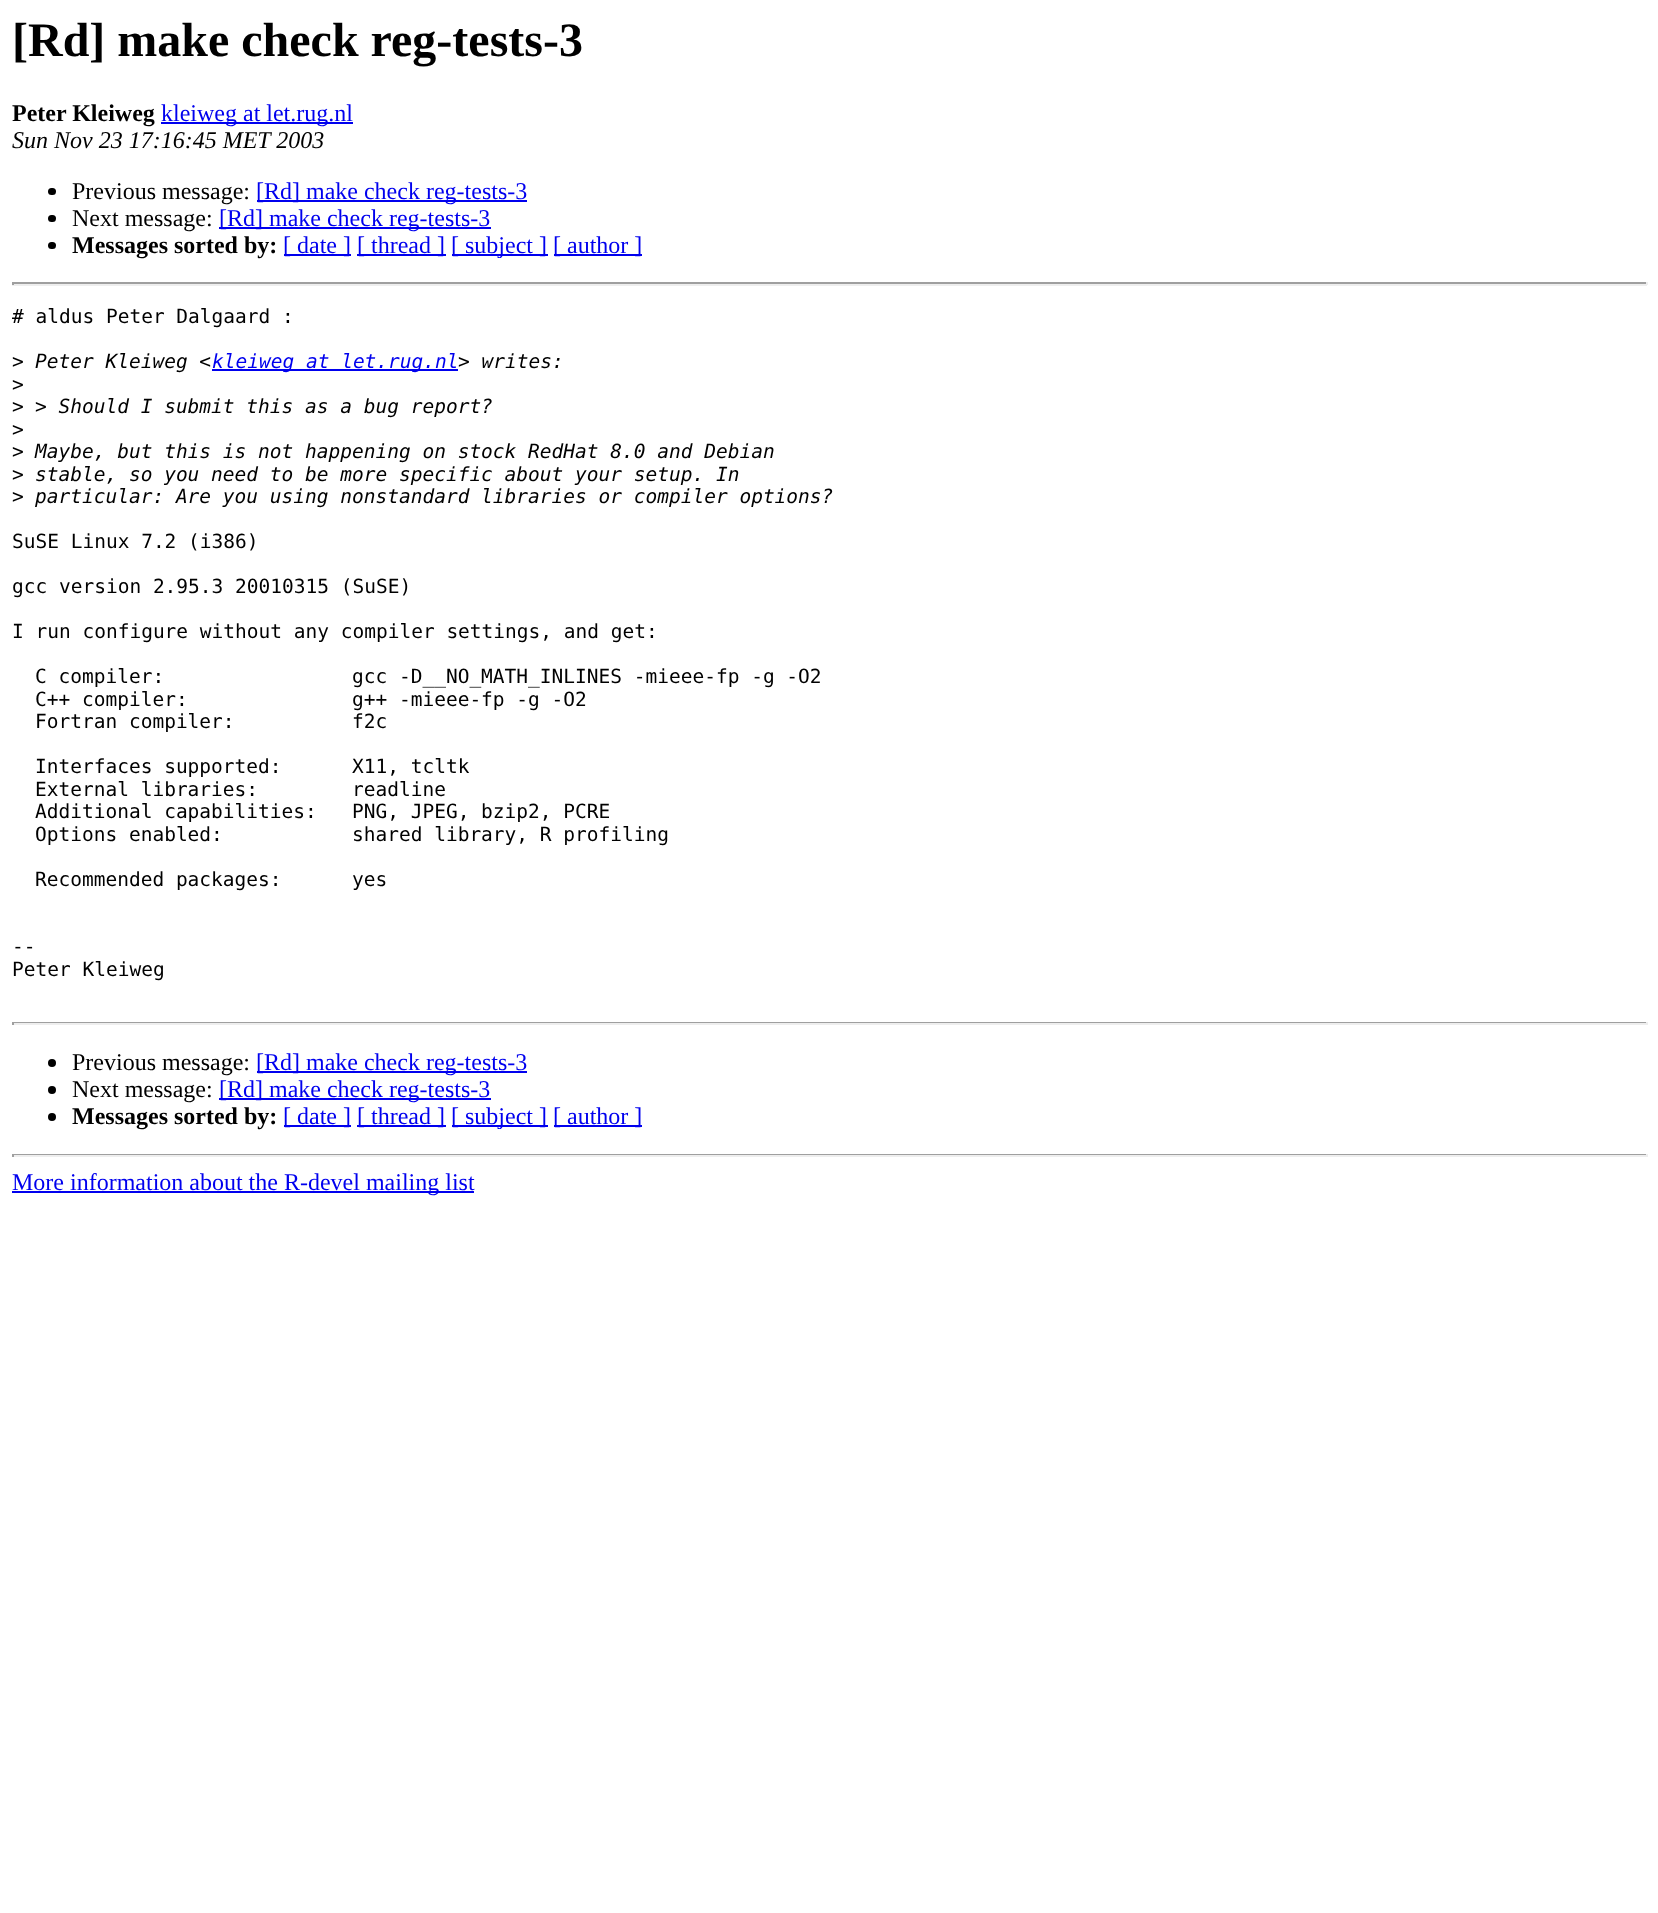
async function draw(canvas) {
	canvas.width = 1658;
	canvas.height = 1913;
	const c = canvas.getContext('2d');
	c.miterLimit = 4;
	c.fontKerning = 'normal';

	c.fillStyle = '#fff';
	c.fillRect(0, 0, 1658, 1913);
	c.font = 'bold 48px Liberation Serif';
	c.fillStyle = '#000';
	c.fillText('[Rd] make check reg-tests-3', 12, 56);
	c.font = 'bold 24px Liberation Serif';
	c.fillText('Peter Kleiweg', 12, 121);
	c.fillStyle = '#00e';
	c.fillRect(161, 122, 192, 2);
	c.font = '24px Liberation Serif';
	c.fillText('kleiweg at let.rug.nl', 161, 121);
	c.font = 'italic 24px Liberation Serif';
	c.fillStyle = '#000';
	c.fillText('Sun Nov 23 17:16:45 MET 2003', 12, 148);
	c.beginPath();
	c.roundRect(48, 188, 8, 7, 3.5);
	c.fill();
	c.font = '24px Liberation Serif';
	c.fillText('Previous message:', 72, 199);
	c.fillStyle = '#00e';
	c.fillRect(257, 200, 270, 2);
	c.fillText('[Rd] make check reg-tests-3', 256, 199);
	c.fillStyle = '#000';
	c.beginPath();
	c.roundRect(48, 215, 8, 7, 3.5);
	c.fill();
	c.fillText('Next message:', 72, 226);
	c.fillStyle = '#00e';
	c.fillRect(219, 227, 272, 2);
	c.fillText('[Rd] make check reg-tests-3', 219, 226);
	c.fillStyle = '#000';
	c.beginPath();
	c.roundRect(48, 242, 8, 7, 3.5);
	c.fill();
	c.font = 'bold 24px Liberation Serif';
	c.fillText('Messages sorted by:', 72, 253);
	c.fillStyle = '#00e';
	c.fillRect(284, 254, 67, 2);
	c.font = '24px Liberation Serif';
	c.fillText('[ date ]', 283, 253);
	c.fillRect(357, 254, 89, 2);
	c.fillText('[ thread ]', 357, 253);
	c.fillRect(452, 254, 96, 2);
	c.fillText('[ subject ]', 451, 253);
	c.fillRect(554, 254, 88, 2);
	c.fillText('[ author ]', 553, 253);
	for (const [x, y, w, h, color] of [
		[12, 282, 1635, 2, '#9f9f9f'],
		[1646, 282, 2, 3, '#eee'],
		[12, 284, 1635, 2, '#eee'],
		[12, 282, 2, 3, '#9f9f9f'],
	]) {
		c.fillStyle = color;
		c.fillRect(x, y, w, h);
	}
	c.font = '19.5px DejaVu Sans Mono';
	c.fillStyle = '#000';
	c.fillText('# aldus Peter Dalgaard :', 12, 323);
	c.fillText('>', 12, 368);
	c.font = 'italic 19.5px DejaVu Sans Mono';
	c.fillText('Peter Kleiweg <', 35, 368);
	c.fillStyle = '#00e';
	c.fillRect(212, 369, 246, 2);
	c.fillText('kleiweg at let.rug.nl', 212, 368);
	c.fillStyle = '#000';
	c.fillText('> writes:', 458, 368);
	c.font = '19.5px DejaVu Sans Mono';
	c.fillText('>', 12, 391);
	c.fillText('>', 12, 413);
	c.font = 'italic 19.5px DejaVu Sans Mono';
	c.fillText('> Should I submit this as a bug report?', 35, 413);
	c.font = '19.5px DejaVu Sans Mono';
	c.fillText('>', 12, 436);
	c.fillText('>', 12, 458);
	c.font = 'italic 19.5px DejaVu Sans Mono';
	c.fillText('Maybe, but this is not happening on stock RedHat 8.0 and Debian', 35, 458);
	c.font = '19.5px DejaVu Sans Mono';
	c.fillText('>', 12, 481);
	c.font = 'italic 19.5px DejaVu Sans Mono';
	c.fillText('stable, so you need to be more specific about your setup. In', 35, 481);
	c.font = '19.5px DejaVu Sans Mono';
	c.fillText('>', 12, 503);
	c.font = 'italic 19.5px DejaVu Sans Mono';
	c.fillText('particular: Are you using nonstandard libraries or compiler options?', 35, 503);
	c.font = '19.5px DejaVu Sans Mono';
	for (const [text, x, y] of [
		['SuSE Linux 7.2 (i386)', 12, 548],
		['gcc version 2.95.3 20010315 (SuSE)', 12, 593],
		['I run configure without any compiler settings, and get:', 12, 638],
		['C compiler:                gcc -D__NO_MATH_INLINES -mieee-fp -g -O2', 35, 683],
		['C++ compiler:              g++ -mieee-fp -g -O2', 35, 706],
		['Fortran compiler:          f2c', 35, 728],
		['Interfaces supported:      X11, tcltk', 35, 773],
		['External libraries:        readline', 35, 796],
		['Additional capabilities:   PNG, JPEG, bzip2, PCRE', 35, 818],
		['Options enabled:           shared library, R profiling', 35, 841],
		['Recommended packages:      yes', 35, 886],
		['--', 12, 953],
		['Peter Kleiweg', 12, 976],
	]) {
		c.fillText(text, x, y);
	}
	for (const [x, y, w, h, color] of [
		[12, 1022, 1635, 1, '#9f9f9f'],
		[1646, 1022, 2, 3, '#eee'],
		[12, 1023, 1635, 2, '#eee'],
		[12, 1022, 2, 3, '#9f9f9f'],
	]) {
		c.fillStyle = color;
		c.fillRect(x, y, w, h);
	}
	c.fillStyle = '#000';
	c.beginPath();
	c.arc(52, 1063, 4, 0, 2 * Math.PI);
	c.fill();
	c.font = '24px Liberation Serif';
	c.fillText('Previous message:', 72, 1070);
	c.fillStyle = '#00e';
	c.fillRect(257, 1071, 270, 2);
	c.fillText('[Rd] make check reg-tests-3', 256, 1070);
	c.fillStyle = '#000';
	c.beginPath();
	c.arc(52, 1090, 4, 0, 2 * Math.PI);
	c.fill();
	c.fillText('Next message:', 72, 1097);
	c.fillStyle = '#00e';
	c.fillRect(219, 1098, 272, 2);
	c.fillText('[Rd] make check reg-tests-3', 219, 1097);
	c.fillStyle = '#000';
	c.beginPath();
	c.arc(52, 1117, 4, 0, 2 * Math.PI);
	c.fill();
	c.font = 'bold 24px Liberation Serif';
	c.fillText('Messages sorted by:', 72, 1124);
	c.fillStyle = '#00e';
	c.fillRect(284, 1125, 67, 2);
	c.font = '24px Liberation Serif';
	c.fillText('[ date ]', 283, 1124);
	c.fillRect(357, 1125, 89, 2);
	c.fillText('[ thread ]', 357, 1124);
	c.fillRect(452, 1125, 96, 2);
	c.fillText('[ subject ]', 451, 1124);
	c.fillRect(554, 1125, 88, 2);
	c.fillText('[ author ]', 553, 1124);
	for (const [x, y, w, h, color] of [
		[12, 1154, 1635, 1, '#9f9f9f'],
		[1646, 1154, 2, 3, '#eee'],
		[12, 1155, 1635, 2, '#eee'],
		[12, 1154, 2, 3, '#9f9f9f'],
		[12, 1191, 462, 2, '#00e'],
	]) {
		c.fillStyle = color;
		c.fillRect(x, y, w, h);
	}
	c.fillText('More information about the R-devel mailing list', 12, 1190);
}

draw(document.querySelector('canvas'));
